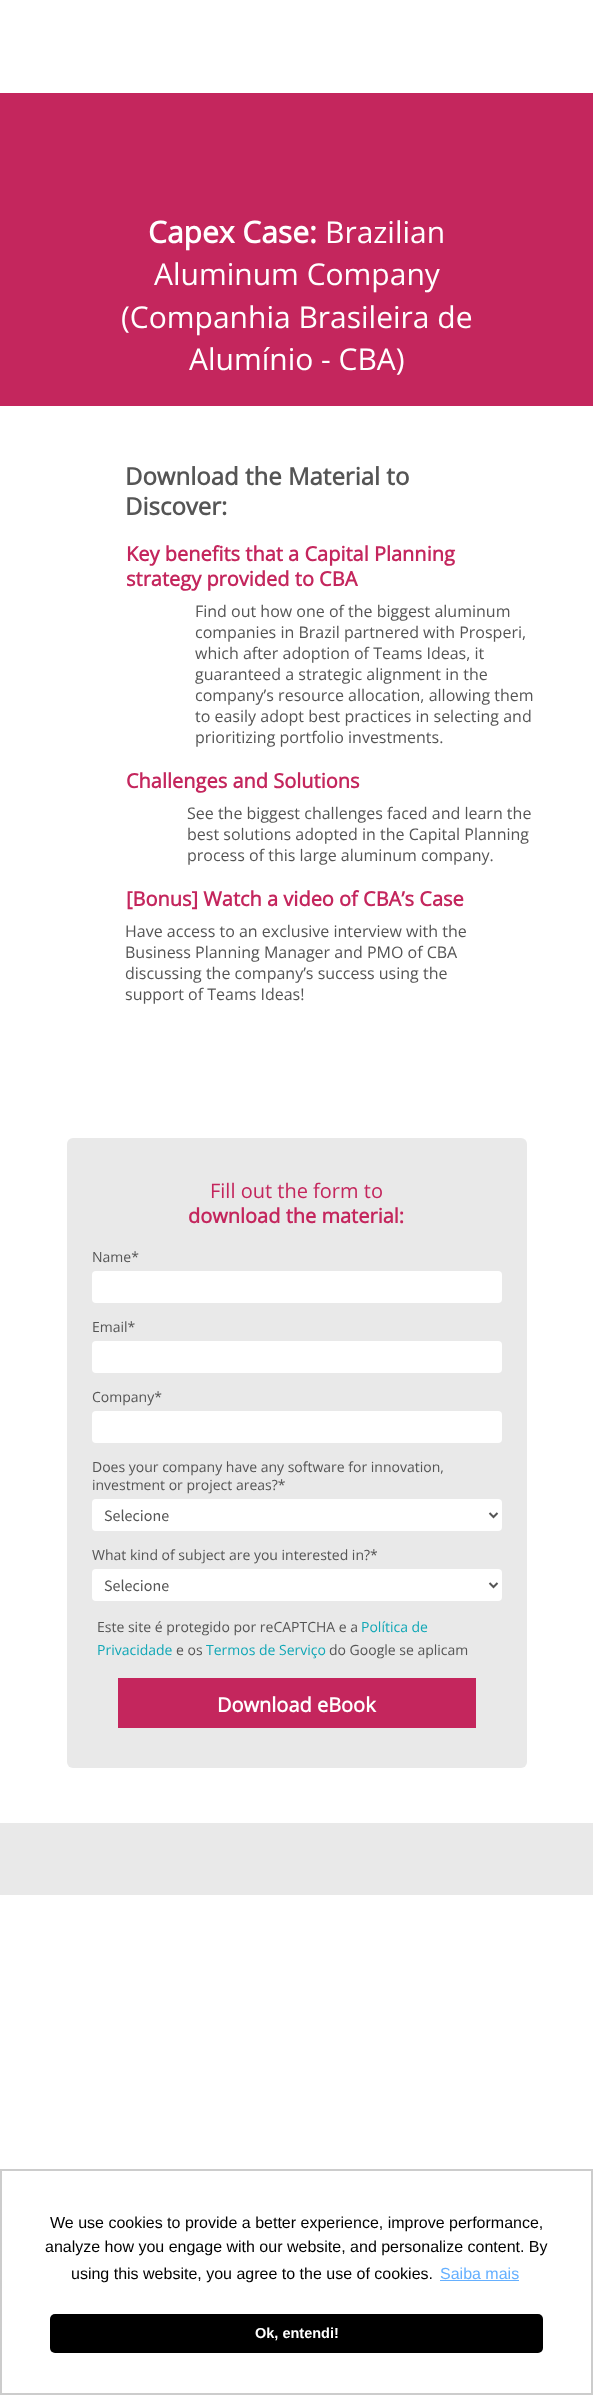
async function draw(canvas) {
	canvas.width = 593;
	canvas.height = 2395;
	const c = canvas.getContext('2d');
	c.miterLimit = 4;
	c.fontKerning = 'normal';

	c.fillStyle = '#fff';
	c.fillRect(0, 0, 593, 2395);
	c.fillStyle = '#c4265d';
	c.fillRect(0, 93, 593, 313);
	c.font = 'bold 30px Open Sans';
	c.fillStyle = '#fff';
	c.fillText('Capex Case:', 148, 243);
	c.font = '30px Open Sans';
	for (const [text, x, y] of [
		['Brazilian', 325, 243],
		['Aluminum Company', 154, 285],
		['(Companhia Brasileira de', 121, 328],
		['Alumínio - CBA)', 189, 370],
	]) {
		c.fillText(text, x, y);
	}
	c.font = 'bold 24px Open Sans';
	c.fillStyle = '#555';
	c.fillText('Download the Material to', 125, 485);
	c.fillText('Discover:', 125, 515);
	c.font = 'bold 20px Open Sans';
	c.fillStyle = '#c4265d';
	c.fillText('Key benefits that a Capital Planning', 126, 561);
	c.fillText('strategy provided to CBA', 126, 586);
	c.font = '16px Open Sans';
	c.fillStyle = '#555';
	for (const [text, x, y] of [
		['Find out how one of the biggest aluminum', 195, 617],
		['companies in Brazil partnered with Prosperi,', 195, 638],
		['which after adoption of Teams Ideas, it', 195, 659],
		['guaranteed a strategic alignment in the', 195, 680],
		['company’s resource allocation, allowing them', 195, 701],
		['to easily adopt best practices in selecting and', 195, 722],
		['prioritizing portfolio investments.', 195, 743],
	]) {
		c.fillText(text, x, y);
	}
	c.font = 'bold 20px Open Sans';
	c.fillStyle = '#c4265d';
	c.fillText('Challenges and Solutions', 126, 788);
	c.font = '16px Open Sans';
	c.fillStyle = '#555';
	for (const [text, x, y] of [
		['See the biggest challenges faced and learn the', 187, 819],
		['best solutions adopted in the Capital Planning', 187, 840],
		['process of this large aluminum company.', 187, 861],
	]) {
		c.fillText(text, x, y);
	}
	c.font = 'bold 20px Open Sans';
	c.fillStyle = '#c4265d';
	c.fillText('[Bonus] Watch a video of CBA’s Case', 126, 906);
	c.font = '16px Open Sans';
	c.fillStyle = '#555';
	for (const [text, x, y] of [
		['Have access to an exclusive interview with the', 125, 937],
		['Business Planning Manager and PMO of CBA', 125, 958],
		['discussing the company’s success using the', 125, 979],
		['support of Teams Ideas!', 125, 1000],
	]) {
		c.fillText(text, x, y);
	}
	c.fillStyle = '#e9e9e9';
	c.beginPath();
	c.roundRect(67, 1138, 460, 630, 6);
	c.fill();
	c.font = '20px Open Sans';
	c.fillStyle = '#c4265d';
	c.fillText('Fill out the form to', 210, 1198);
	c.font = 'bold 20px Open Sans';
	c.fillText('download the material:', 188, 1223);
	c.font = '14px Open Sans';
	c.fillStyle = '#555';
	c.fillText('Name*', 92, 1262);
	c.fillStyle = '#fff';
	c.beginPath();
	c.roundRect(92, 1271, 410, 32, 4);
	c.fill();
	c.fillStyle = '#555';
	c.fillText('Email*', 92, 1332);
	c.fillStyle = '#fff';
	c.beginPath();
	c.roundRect(92, 1341, 410, 32, 4);
	c.fill();
	c.fillStyle = '#555';
	c.fillText('Company*', 92, 1402);
	c.fillStyle = '#fff';
	c.beginPath();
	c.roundRect(92, 1411, 410, 32, 4);
	c.fill();
	c.fillStyle = '#555';
	c.fillText('Does your company have any software for innovation,', 92, 1472);
	c.fillText('investment or project areas?*', 92, 1490);
	c.fillStyle = '#fff';
	c.beginPath();
	c.roundRect(92, 1499, 410, 32, 4);
	c.fill();
	c.beginPath();
	c.moveTo(489.5, 1513);
	c.lineTo(493.5, 1517);
	c.lineTo(497.5, 1513);
	c.strokeStyle = '#555';
	c.lineWidth = 2;
	c.stroke();
	c.font = '16px Source Sans Pro';
	c.fillStyle = '#555';
	c.fillText('Selecione', 104, 1521);
	c.font = '14px Open Sans';
	c.fillText('What kind of subject are you interested in?*', 92, 1560);
	c.fillStyle = '#fff';
	c.beginPath();
	c.roundRect(92, 1569, 410, 32, 4);
	c.fill();
	c.beginPath();
	c.moveTo(489.5, 1583);
	c.lineTo(493.5, 1587);
	c.lineTo(497.5, 1583);
	c.stroke();
	c.font = '16px Source Sans Pro';
	c.fillStyle = '#555';
	c.fillText('Selecione', 104, 1591);
	c.font = '14px Open Sans';
	c.fillText('Este site é protegido por reCAPTCHA e a', 97, 1632);
	c.fillStyle = '#11a7b6';
	c.fillText('Política de', 361, 1632);
	c.fillText('Privacidade', 97, 1655);
	c.fillStyle = '#555';
	c.fillText('e os', 176, 1655);
	c.fillStyle = '#11a7b6';
	c.fillText('Termos de Serviço', 206, 1655);
	c.fillStyle = '#555';
	c.fillText('do Google se aplicam', 329, 1655);
	c.fillStyle = '#c4265d';
	c.fillRect(118, 1678, 358, 50);
	c.font = 'bold 20px Open Sans';
	c.fillStyle = '#fff';
	c.fillText('Download eBook', 217, 1712);
	c.fillStyle = '#e9e9e9';
	c.fillRect(0, 1823, 593, 72);
	c.strokeStyle = '#ccc';
	c.strokeRect(1, 2170, 591, 224);
	c.font = '16px Liberation Sans';
	c.fillStyle = '#000';
	for (const [text, x, y] of [
		['We use cookies to provide a better experience, improve performance,', 50, 2228],
		['analyze how you engage with our website, and personalize content. By', 45, 2252],
		['using this website, you agree to the use of cookies.', 71, 2279],
	]) {
		c.fillText(text, x, y);
	}
	c.fillStyle = '#66b0ff';
	c.fillText('Saiba mais', 440, 2279);
	c.fillRect(440, 2280, 79, 1);
	c.fillStyle = '#000';
	c.beginPath();
	c.roundRect(50, 2314, 493, 39, 5);
	c.fill();
	c.font = 'bold 14.5px Liberation Sans';
	c.fillStyle = '#fff';
	c.fillText('Ok, entendi!', 255, 2338);
}

draw(document.querySelector('canvas'));
